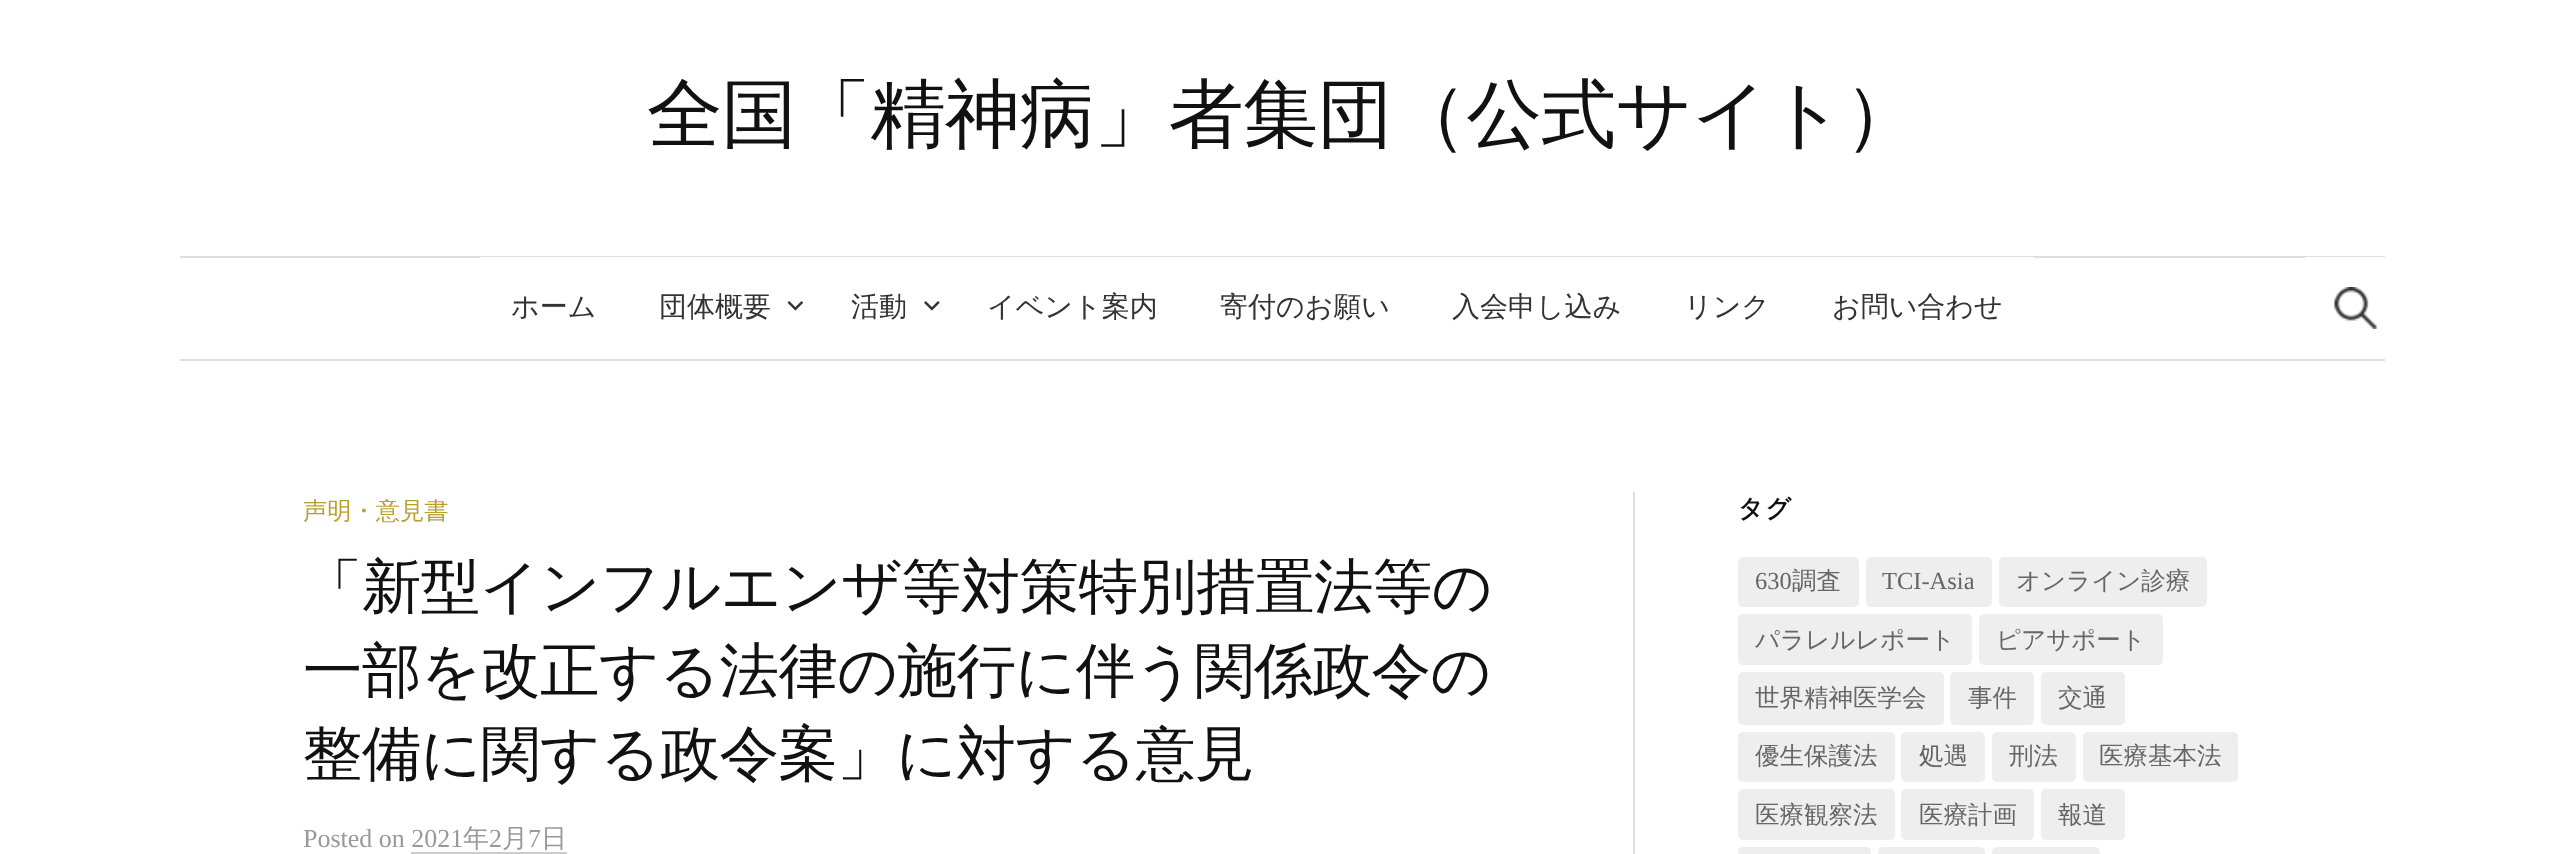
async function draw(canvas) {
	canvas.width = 2565;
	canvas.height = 854;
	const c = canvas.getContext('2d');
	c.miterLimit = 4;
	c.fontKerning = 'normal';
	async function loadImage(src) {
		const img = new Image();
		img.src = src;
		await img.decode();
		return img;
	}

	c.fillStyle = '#fff';
	c.fillRect(0, 0, 2565, 854);
	c.letterSpacing = '-0.75px';
	c.font = '500 75.25px WenQuanYi Zen Hei';
	c.fillStyle = '#111';
	c.fillText('全国「精神病」者集団（公式サイト）', 647, 140);
	for (const [x, y, w, h, color] of [
		[180, 256, 2205, 2, '#ddd'],
		[180, 359, 2205, 2, '#ddd'],
		[480, 257, 1554, 1, '#fff'],
	]) {
		c.fillStyle = color;
		c.fillRect(x, y, w, h);
	}
	c.letterSpacing = '0px';
	c.font = '500 28px WenQuanYi Zen Hei';
	c.fillStyle = '#333';
	c.fillText('ホーム', 511, 316);
	c.fillText('団体概要', 659, 316);
	c.drawImage(await loadImage('img1.png'), 787, 301, 17, 10);
	c.fillText('活動', 851, 316);
	c.drawImage(await loadImage('img2.png'), 924, 301, 16, 10);
	for (const [text, x, y] of [
		['イベント案内', 987, 316],
		['寄付のお願い', 1220, 316],
		['入会申し込み', 1452, 316],
		['リンク', 1684, 316],
		['お問い合わせ', 1832, 316],
	]) {
		c.fillText(text, x, y);
	}
	c.fillStyle = '#fff';
	c.fillRect(2305, 257, 80, 1);
	c.drawImage(await loadImage('img3.png'), 2334, 287, 43, 42);
	c.fillStyle = '#ddd';
	c.fillRect(1633, 492, 2, 362);
	c.font = '500 24.25px WenQuanYi Zen Hei';
	c.fillStyle = '#ba9e30';
	c.fillText('声明・意見書', 303, 519);
	c.letterSpacing = '-0.6px';
	c.font = '500 59.5px WenQuanYi Zen Hei';
	c.fillStyle = '#111';
	for (const [text, x, y] of [
		['「新型インフルエンザ等対策特別措置法等の', 303, 607],
		['一部を改正する法律の施行に伴う関係政令の', 303, 691],
		['整備に関する政令案」に対する意見', 303, 774],
	]) {
		c.fillText(text, x, y);
	}
	c.letterSpacing = '0px';
	c.font = '26px Liberation Serif';
	c.fillStyle = '#999';
	c.fillText('Posted on 2021', 303, 847);
	c.font = '500 26px WenQuanYi Zen Hei';
	c.fillText('年', 463, 847);
	c.font = '26px Liberation Serif';
	c.fillText('2', 489, 847);
	c.font = '500 26px WenQuanYi Zen Hei';
	c.fillText('月', 502, 847);
	c.fillStyle = '#ccc';
	c.fillRect(411, 852, 156, 2);
	c.font = '26px Liberation Serif';
	c.fillStyle = '#999';
	c.fillText('7', 528, 847);
	c.font = '500 26px WenQuanYi Zen Hei';
	c.fillText('日', 541, 847);
	c.letterSpacing = '2px';
	c.font = 'bold 25px WenQuanYi Zen Hei';
	c.fillStyle = '#111';
	c.fillText('タグ', 1738, 517);
	c.fillStyle = '#eee';
	c.beginPath();
	c.roundRect(1738, 557, 121, 50, 5);
	c.fill();
	c.letterSpacing = '0px';
	c.font = '24.5px Liberation Serif';
	c.fillStyle = '#666';
	c.fillText('630', 1755, 589);
	c.font = '500 24.5px WenQuanYi Zen Hei';
	c.fillText('調査', 1792, 589);
	c.fillStyle = '#eee';
	c.beginPath();
	c.roundRect(1866, 557, 126, 50, 5);
	c.fill();
	c.font = '24.5px Liberation Serif';
	c.fillStyle = '#666';
	c.fillText('TCI-Asia', 1882, 589);
	c.fillStyle = '#eee';
	c.beginPath();
	c.roundRect(1999, 557, 208, 50, 5);
	c.fill();
	c.font = '500 24.5px WenQuanYi Zen Hei';
	c.fillStyle = '#666';
	c.fillText('オンライン診療', 2016, 589);
	c.fillStyle = '#eee';
	c.beginPath();
	c.roundRect(1738, 614, 234, 51, 5);
	c.fill();
	c.fillStyle = '#666';
	c.fillText('パラレルレポート', 1755, 648);
	c.fillStyle = '#eee';
	c.beginPath();
	c.roundRect(1979, 614, 184, 51, 5);
	c.fill();
	c.fillStyle = '#666';
	c.fillText('ピアサポート', 1996, 648);
	c.fillStyle = '#eee';
	c.beginPath();
	c.roundRect(1738, 672, 206, 53, 5);
	c.fill();
	c.fillStyle = '#666';
	c.fillText('世界精神医学会', 1755, 706);
	c.fillStyle = '#eee';
	c.beginPath();
	c.roundRect(1950, 672, 84, 53, 5);
	c.fill();
	c.fillStyle = '#666';
	c.fillText('事件', 1968, 706);
	c.fillStyle = '#eee';
	c.beginPath();
	c.roundRect(2041, 672, 84, 53, 5);
	c.fill();
	c.fillStyle = '#666';
	c.fillText('交通', 2058, 706);
	c.fillStyle = '#eee';
	c.beginPath();
	c.roundRect(1738, 732, 157, 50, 5);
	c.fill();
	c.fillStyle = '#666';
	c.fillText('優生保護法', 1755, 764);
	c.fillStyle = '#eee';
	c.beginPath();
	c.roundRect(1901, 732, 84, 50, 5);
	c.fill();
	c.fillStyle = '#666';
	c.fillText('処遇', 1919, 764);
	c.fillStyle = '#eee';
	c.beginPath();
	c.roundRect(1992, 732, 84, 50, 5);
	c.fill();
	c.fillStyle = '#666';
	c.fillText('刑法', 2009, 764);
	c.fillStyle = '#eee';
	c.beginPath();
	c.roundRect(2083, 732, 155, 50, 5);
	c.fill();
	c.fillStyle = '#666';
	c.fillText('医療基本法', 2099, 764);
	c.fillStyle = '#eee';
	c.beginPath();
	c.roundRect(1738, 789, 157, 51, 5);
	c.fill();
	c.fillStyle = '#666';
	c.fillText('医療観察法', 1755, 823);
	c.fillStyle = '#eee';
	c.beginPath();
	c.roundRect(1901, 789, 133, 51, 5);
	c.fill();
	c.fillStyle = '#666';
	c.fillText('医療計画', 1919, 823);
	c.fillStyle = '#eee';
	c.beginPath();
	c.roundRect(2041, 789, 84, 51, 5);
	c.fill();
	c.fillStyle = '#666';
	c.fillText('報道', 2058, 823);
	c.fillStyle = '#eee';
	c.beginPath();
	c.roundRect(1738, 847, 133, 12, 5);
	c.fill();
	c.beginPath();
	c.roundRect(1878, 847, 107, 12, 5);
	c.fill();
	c.beginPath();
	c.roundRect(1992, 847, 108, 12, 5);
	c.fill();
}

draw(document.querySelector('canvas'));
